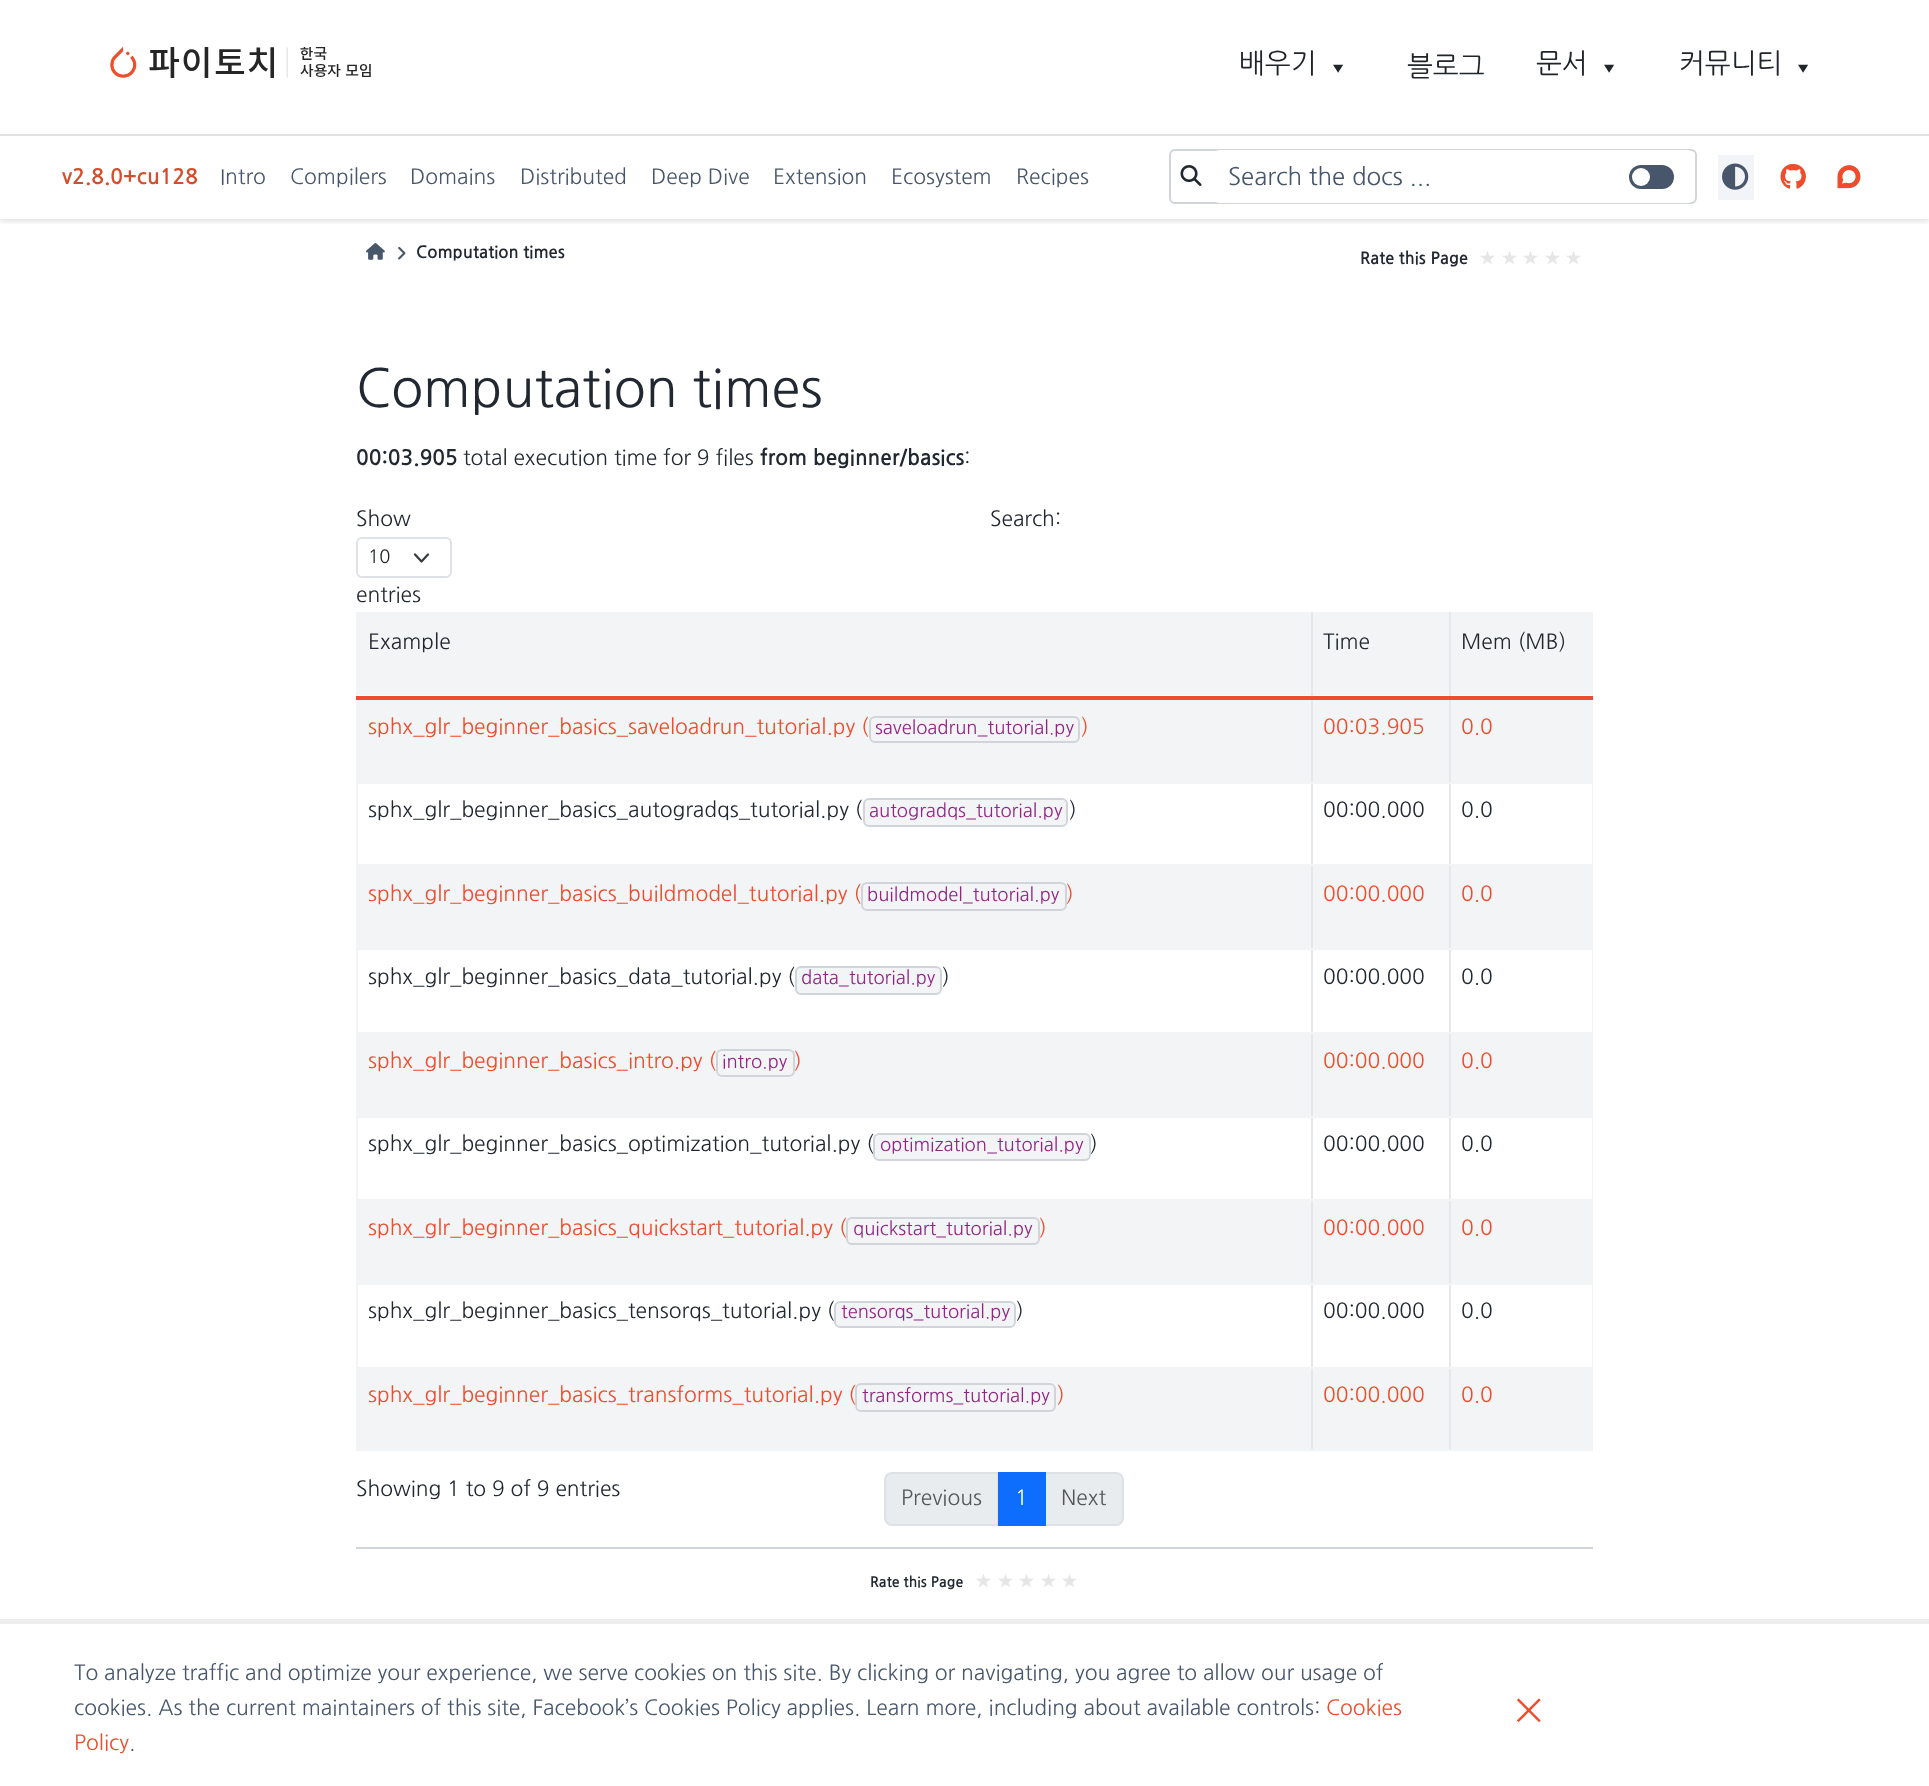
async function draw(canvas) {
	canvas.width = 1929;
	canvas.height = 1786;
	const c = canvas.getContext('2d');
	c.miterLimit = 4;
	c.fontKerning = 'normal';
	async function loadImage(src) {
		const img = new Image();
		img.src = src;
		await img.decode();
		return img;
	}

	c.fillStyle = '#fff';
	c.fillRect(0, 0, 1929, 1786);
	c.save();
	c.beginPath();
	c.rect(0, 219, 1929, 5);
	c.clip();
	c.fillStyle = '#0000001a';
	c.filter = 'blur(2.5px)';
	c.beginPath();
	c.rect(0, 138, 1929, 84);
	c.fill();
	c.filter = 'none';
	c.restore();
	c.fillStyle = '#e2e2e2';
	c.fillRect(0, 134, 1929, 2);
	c.drawImage(await loadImage('img1.png'), 110, 46, 261, 32);
	c.font = '27.5px NanumGothic';
	c.fillStyle = '#212529';
	c.fillText('배우기', 1239, 73);
	c.font = '13px NanumGothic';
	c.fillText('▼', 1332, 73);
	c.font = '27.5px NanumGothic';
	c.fillText('블로그', 1407, 76);
	c.fillText('문서', 1536, 73);
	c.font = '13px NanumGothic';
	c.fillText('▼', 1603, 73);
	c.font = '27.5px NanumGothic';
	c.fillText('커뮤니티', 1679, 73);
	c.font = '13px NanumGothic';
	c.fillText('▼', 1797, 73);
	c.font = 'bold 21px NanumGothic';
	c.fillStyle = '#d44d2c';
	c.fillText('v2.8.0+cu128', 62, 184);
	c.font = '21px NanumGothic';
	c.fillStyle = '#48566b';
	for (const [text, x, y] of [
		['Intro', 220, 184],
		['Compilers', 290, 184],
		['Domains', 410, 184],
		['Distributed', 520, 184],
		['Deep Dive', 651, 184],
		['Extension', 773, 184],
		['Ecosystem', 891, 184],
		['Recipes', 1016, 184],
	]) {
		c.fillText(text, x, y);
	}
	c.beginPath();
	c.roundRect(1170, 150, 526, 53, 5);
	c.strokeStyle = '#d1d5da';
	c.lineWidth = 2;
	c.stroke();
	c.drawImage(await loadImage('img2.png'), 1180, 165, 22, 21);
	c.fillStyle = '#fff';
	c.beginPath();
	c.roundRect(1212, 150, 483, 53, 8);
	c.fill();
	c.font = '24px NanumGothic';
	c.fillStyle = '#48566b';
	c.fillText('Search the docs ...', 1228, 185);
	c.beginPath();
	c.roundRect(1629, 165, 45, 24, 12);
	c.fill();
	c.fillStyle = '#fff';
	c.beginPath();
	c.arc(1641, 177, 9, 0, 2 * Math.PI);
	c.fill();
	c.fillStyle = '#f3f4f7';
	c.fillRect(1718, 155, 36, 45);
	c.drawImage(await loadImage('img3.png'), 1722, 163, 27, 27);
	c.drawImage(await loadImage('img4.png'), 1780, 163, 26, 26);
	c.drawImage(await loadImage('img5.png'), 1837, 165, 24, 24);
	c.drawImage(await loadImage('img6.png'), 366, 243, 19, 17);
	c.drawImage(await loadImage('img7.png'), 398, 246, 8, 14);
	c.font = 'bold 16.75px NanumGothic';
	c.fillStyle = '#222832';
	c.fillText('Computation times', 416, 258);
	c.font = 'bold 16.5px NanumGothic';
	c.fillText('Rate this Page', 1360, 264);
	c.font = '18px NanumGothic';
	c.fillStyle = '#e6e6e6';
	for (const [text, x, y] of [
		['★', 1479, 264],
		['★', 1501, 264],
		['★', 1522, 264],
		['★', 1544, 264],
		['★', 1565, 264],
	]) {
		c.fillText(text, x, y);
	}
	c.font = '52.5px NanumGothic';
	c.fillStyle = '#222832';
	c.fillText('Computation times', 356, 407);
	c.font = 'bold 21px NanumGothic';
	c.fillText('00:03.905', 356, 465);
	c.font = '21px NanumGothic';
	c.fillText('total execution time for 9 files', 463, 465);
	c.font = 'bold 21px NanumGothic';
	c.fillText('from beginner/basics', 760, 465);
	c.font = '21px NanumGothic';
	c.fillText(':', 964, 465);
	c.fillText('Show', 356, 526);
	c.beginPath();
	c.moveTo(415, 554.5);
	c.lineTo(421.5, 561.5);
	c.lineTo(428, 554.5);
	c.strokeStyle = '#343a40';
	c.lineWidth = 2.2;
	c.lineCap = 'round';
	c.lineJoin = 'round';
	c.stroke();
	c.beginPath();
	c.roundRect(357, 538, 94, 39, 5);
	c.strokeStyle = '#dee2e6';
	c.lineWidth = 2;
	c.lineJoin = 'miter';
	c.stroke();
	c.font = '18.4px NanumGothic';
	c.fillStyle = '#212529';
	c.fillText('10', 368, 563);
	c.font = '21px NanumGothic';
	c.fillStyle = '#222832';
	c.fillText('entries', 356, 602);
	c.fillText('Search:', 990, 526);
	for (const [x, y, w, h, color] of [
		[356, 612, 1237, 2, '#f3f4f5'],
		[1592, 612, 1, 839, '#f3f4f5'],
		[1451, 1449, 142, 2, '#f3f4f5'],
		[356, 612, 2, 839, '#f3f4f5'],
		[358, 614, 1234, 81, '#f3f4f5'],
	]) {
		c.fillStyle = color;
		c.fillRect(x, y, w, h);
	}
	c.fillStyle = '#222832';
	c.fillText('Example', 368, 649);
	c.fillText('Time', 1323, 649);
	for (const [x, y, w, h, color] of [
		[358, 700, 1234, 82, '#f3f4f5'],
		[358, 866, 1234, 82, '#f3f4f5'],
		[358, 1034, 1234, 82, '#f3f4f5'],
		[358, 1201, 1234, 82, '#f3f4f5'],
		[358, 1369, 1234, 80, '#f3f4f5'],
		[1449, 1367, 2, 84, '#e5e7ea'],
		[1449, 1367, 144, 2, '#f3f4f5'],
		[1449, 1283, 2, 85, '#e5e7ea'],
		[1449, 1283, 144, 2, '#f3f4f5'],
		[1449, 1199, 2, 85, '#e5e7ea'],
		[1449, 1199, 144, 2, '#f3f4f5'],
		[1449, 1116, 2, 84, '#e5e7ea'],
		[1449, 1116, 144, 2, '#f3f4f5'],
		[1449, 1032, 2, 86, '#e5e7ea'],
		[1449, 1032, 144, 2, '#f3f4f5'],
		[1449, 948, 2, 86, '#e5e7ea'],
		[1449, 948, 144, 2, '#f3f4f5'],
		[1449, 864, 2, 86, '#e5e7ea'],
		[1449, 864, 144, 2, '#f3f4f5'],
		[1449, 782, 2, 84, '#e5e7ea'],
		[1449, 782, 144, 2, '#f3f4f5'],
		[1449, 612, 2, 171, '#e5e7ea'],
		[1311, 1449, 140, 2, '#f3f4f5'],
		[1311, 1367, 2, 84, '#e5e7ea'],
		[1311, 1367, 140, 2, '#f3f4f5'],
		[1311, 1283, 2, 85, '#e5e7ea'],
		[1311, 1283, 140, 2, '#f3f4f5'],
		[1311, 1199, 2, 85, '#e5e7ea'],
		[1311, 1199, 140, 2, '#f3f4f5'],
		[1311, 1116, 2, 84, '#e5e7ea'],
		[1311, 1116, 140, 2, '#f3f4f5'],
		[1311, 1032, 2, 86, '#e5e7ea'],
		[1311, 1032, 140, 2, '#f3f4f5'],
		[1311, 948, 2, 86, '#e5e7ea'],
		[1311, 948, 140, 2, '#f3f4f5'],
		[1311, 864, 2, 86, '#e5e7ea'],
		[1311, 864, 140, 2, '#f3f4f5'],
		[1311, 782, 2, 84, '#e5e7ea'],
		[1311, 782, 140, 2, '#f3f4f5'],
		[1311, 612, 2, 171, '#e5e7ea'],
		[356, 696, 1237, 4, '#ee4c2c'],
	]) {
		c.fillStyle = color;
		c.fillRect(x, y, w, h);
	}
	c.fillStyle = '#222832';
	c.fillText('Mem (MB)', 1461, 649);
	c.fillStyle = '#f3f4f5';
	c.fillRect(356, 782, 957, 2);
	c.fillStyle = '#ee4c2c';
	c.fillText('sphx_glr_beginner_basics_saveloadrun_tutorial.py (', 368, 734);
	c.beginPath();
	c.roundRect(870, 717, 209, 25, 5);
	c.strokeStyle = '#d1d5da';
	c.stroke();
	c.font = '18.4px NanumGothic';
	c.fillStyle = '#912583';
	c.fillText('saveloadrun_tutorial.py', 875, 734);
	c.font = '21px NanumGothic';
	c.fillStyle = '#ee4c2c';
	for (const [text, x, y] of [
		[')', 1081, 734],
		['00:03.905', 1323, 734],
		['0.0', 1461, 734],
	]) {
		c.fillText(text, x, y);
	}
	c.fillStyle = '#f3f4f5';
	c.fillRect(356, 864, 957, 2);
	c.fillStyle = '#222832';
	c.fillText('sphx_glr_beginner_basics_autogradqs_tutorial.py (', 368, 817);
	c.fillStyle = '#f3f4f5';
	c.beginPath();
	c.roundRect(864, 799, 203, 27, 5);
	c.fill();
	c.stroke();
	c.font = '18.4px NanumGothic';
	c.fillStyle = '#912583';
	c.fillText('autogradqs_tutorial.py', 869, 817);
	c.font = '21px NanumGothic';
	c.fillStyle = '#222832';
	for (const [text, x, y] of [
		[')', 1069, 817],
		['00:00.000', 1323, 817],
		['0.0', 1461, 817],
	]) {
		c.fillText(text, x, y);
	}
	c.fillStyle = '#f3f4f5';
	c.fillRect(356, 948, 957, 2);
	c.fillStyle = '#ee4c2c';
	c.fillText('sphx_glr_beginner_basics_buildmodel_tutorial.py (', 368, 901);
	c.beginPath();
	c.roundRect(862, 883, 204, 27, 5);
	c.stroke();
	c.font = '18.4px NanumGothic';
	c.fillStyle = '#912583';
	c.fillText('buildmodel_tutorial.py', 867, 901);
	c.font = '21px NanumGothic';
	c.fillStyle = '#ee4c2c';
	for (const [text, x, y] of [
		[')', 1066, 901],
		['00:00.000', 1323, 901],
		['0.0', 1461, 901],
	]) {
		c.fillText(text, x, y);
	}
	c.fillStyle = '#f3f4f5';
	c.fillRect(356, 1032, 957, 2);
	c.fillStyle = '#222832';
	c.fillText('sphx_glr_beginner_basics_data_tutorial.py (', 368, 984);
	c.fillStyle = '#f3f4f5';
	c.beginPath();
	c.roundRect(796, 967, 145, 27, 5);
	c.fill();
	c.stroke();
	c.font = '18.4px NanumGothic';
	c.fillStyle = '#912583';
	c.fillText('data_tutorial.py', 801, 984);
	c.font = '21px NanumGothic';
	c.fillStyle = '#222832';
	for (const [text, x, y] of [
		[')', 942, 984],
		['00:00.000', 1323, 984],
		['0.0', 1461, 984],
	]) {
		c.fillText(text, x, y);
	}
	c.fillStyle = '#f3f4f5';
	c.fillRect(356, 1116, 957, 2);
	c.fillStyle = '#ee4c2c';
	c.fillText('sphx_glr_beginner_basics_intro.py (', 368, 1068);
	c.beginPath();
	c.roundRect(717, 1050, 77, 26, 5);
	c.stroke();
	c.font = '18.4px NanumGothic';
	c.fillStyle = '#912583';
	c.fillText('intro.py', 722, 1068);
	c.font = '21px NanumGothic';
	c.fillStyle = '#ee4c2c';
	for (const [text, x, y] of [
		[')', 794, 1068],
		['00:00.000', 1323, 1068],
		['0.0', 1461, 1068],
	]) {
		c.fillText(text, x, y);
	}
	c.fillStyle = '#f3f4f5';
	c.fillRect(356, 1199, 957, 2);
	c.fillStyle = '#222832';
	c.fillText('sphx_glr_beginner_basics_optimization_tutorial.py (', 368, 1151);
	c.fillStyle = '#f3f4f5';
	c.beginPath();
	c.roundRect(874, 1134, 216, 26, 5);
	c.fill();
	c.stroke();
	c.font = '18.4px NanumGothic';
	c.fillStyle = '#912583';
	c.fillText('optimization_tutorial.py', 880, 1151);
	c.font = '21px NanumGothic';
	c.fillStyle = '#222832';
	for (const [text, x, y] of [
		[')', 1090, 1151],
		['00:00.000', 1323, 1151],
		['0.0', 1461, 1151],
	]) {
		c.fillText(text, x, y);
	}
	c.fillStyle = '#f3f4f5';
	c.fillRect(356, 1283, 957, 2);
	c.fillStyle = '#ee4c2c';
	c.fillText('sphx_glr_beginner_basics_quickstart_tutorial.py (', 368, 1235);
	c.beginPath();
	c.roundRect(847, 1218, 192, 26, 5);
	c.stroke();
	c.font = '18.4px NanumGothic';
	c.fillStyle = '#912583';
	c.fillText('quickstart_tutorial.py', 853, 1235);
	c.font = '21px NanumGothic';
	c.fillStyle = '#ee4c2c';
	for (const [text, x, y] of [
		[')', 1039, 1235],
		['00:00.000', 1323, 1235],
		['0.0', 1461, 1235],
	]) {
		c.fillText(text, x, y);
	}
	c.fillStyle = '#f3f4f5';
	c.fillRect(356, 1367, 957, 2);
	c.fillStyle = '#222832';
	c.fillText('sphx_glr_beginner_basics_tensorqs_tutorial.py (', 368, 1318);
	c.fillStyle = '#f3f4f5';
	c.beginPath();
	c.roundRect(835, 1302, 180, 25, 5);
	c.fill();
	c.stroke();
	c.font = '18.4px NanumGothic';
	c.fillStyle = '#912583';
	c.fillText('tensorqs_tutorial.py', 841, 1318);
	c.font = '21px NanumGothic';
	c.fillStyle = '#222832';
	for (const [text, x, y] of [
		[')', 1016, 1318],
		['00:00.000', 1323, 1318],
		['0.0', 1461, 1318],
	]) {
		c.fillText(text, x, y);
	}
	c.fillStyle = '#f3f4f5';
	c.fillRect(356, 1449, 957, 2);
	c.fillStyle = '#ee4c2c';
	c.fillText('sphx_glr_beginner_basics_transforms_tutorial.py (', 368, 1402);
	c.beginPath();
	c.roundRect(856, 1384, 199, 27, 5);
	c.stroke();
	c.font = '18.4px NanumGothic';
	c.fillStyle = '#912583';
	c.fillText('transforms_tutorial.py', 862, 1402);
	c.font = '21px NanumGothic';
	c.fillStyle = '#ee4c2c';
	for (const [text, x, y] of [
		[')', 1057, 1402],
		['00:00.000', 1323, 1402],
		['0.0', 1461, 1402],
	]) {
		c.fillText(text, x, y);
	}
	c.fillStyle = '#222832';
	c.fillText('Showing 1 to 9 of 9 entries', 356, 1496);
	c.fillStyle = '#e9ecef';
	c.beginPath();
	c.roundRect(885, 1473, 113, 52, [7, 0, 0, 7]);
	c.fill();
	c.strokeStyle = '#dee2e6';
	c.stroke();
	c.fillStyle = '#53575b';
	c.fillText('Previous', 901, 1505);
	c.fillStyle = '#e9ecef';
	c.beginPath();
	c.roundRect(1045, 1473, 78, 52, [0, 7, 7, 0]);
	c.fill();
	c.stroke();
	c.fillStyle = '#0d6efd';
	c.fillRect(998, 1472, 48, 54);
	c.fillStyle = '#fff';
	c.fillText('1', 1015, 1505);
	c.fillStyle = '#53575b';
	c.fillText('Next', 1061, 1505);
	c.fillStyle = '#d1d5da';
	c.fillRect(356, 1547, 1237, 2);
	c.font = 'bold 14.25px NanumGothic';
	c.fillStyle = '#222832';
	c.fillText('Rate this Page', 870, 1587);
	c.font = '18px NanumGothic';
	c.fillStyle = '#e6e6e6';
	for (const [text, x, y] of [
		['★', 975, 1587],
		['★', 997, 1587],
		['★', 1018, 1587],
		['★', 1040, 1587],
		['★', 1061, 1587],
	]) {
		c.fillText(text, x, y);
	}
	c.fillStyle = '#ededee';
	c.fillRect(0, 1619, 1929, 5);
	c.font = '21px NanumGothic';
	c.fillStyle = '#48566b';
	c.fillText('To analyze traffic and optimize your experience, we serve cookies on this site. By clicking or navigating, you agree to allow our usage of', 74, 1680);
	c.fillText('cookies. As the current maintainers of this site, Facebook’s Cookies Policy applies. Learn more, including about available controls:', 74, 1715);
	c.fillStyle = '#ee4c2c';
	c.fillText('Cookies', 1326, 1715);
	c.fillText('Policy', 74, 1750);
	c.fillStyle = '#48566b';
	c.fillText('.', 129, 1750);
	c.drawImage(await loadImage('img8.png'), 1517, 1698, 24, 24);
}

draw(document.querySelector('canvas'));
